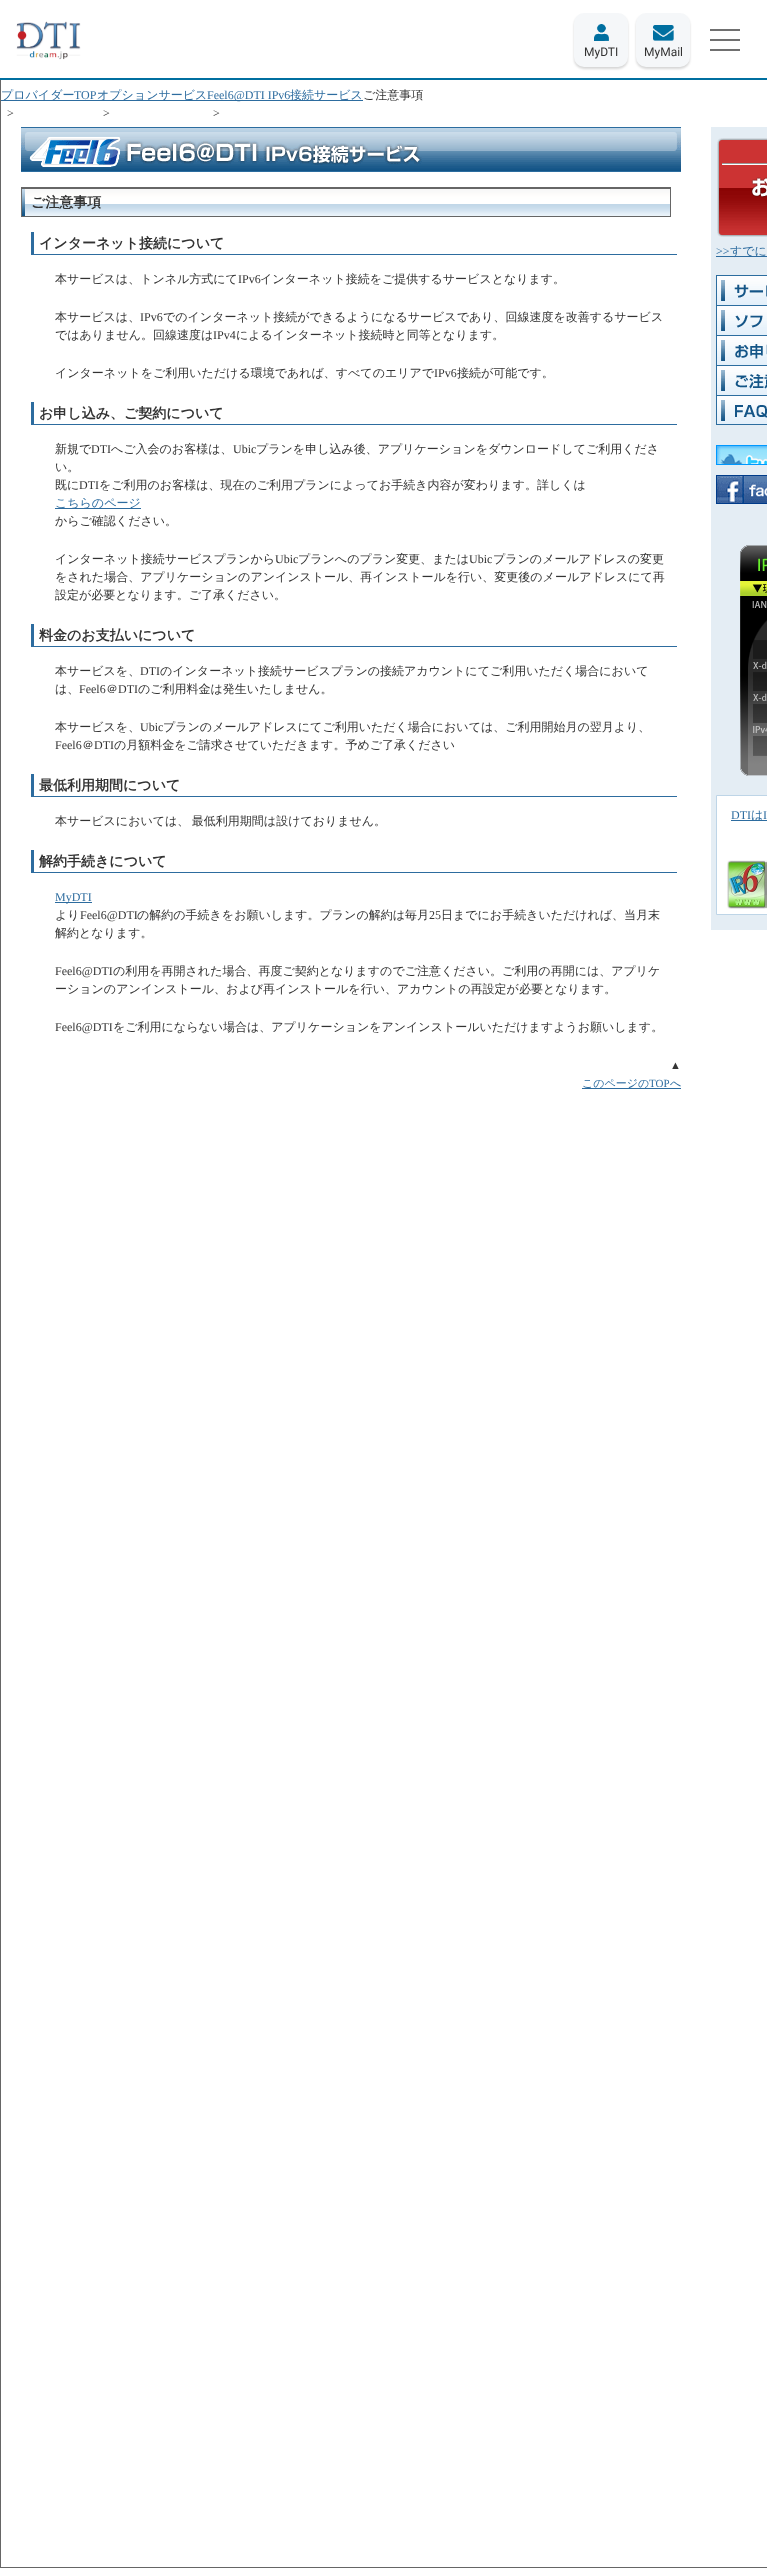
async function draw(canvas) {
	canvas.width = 767;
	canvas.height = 2568;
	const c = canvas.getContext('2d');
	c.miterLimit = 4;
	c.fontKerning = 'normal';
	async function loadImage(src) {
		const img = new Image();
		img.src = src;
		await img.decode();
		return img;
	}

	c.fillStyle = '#fff';
	c.fillRect(0, 0, 767, 2568);
	c.strokeStyle = '#666';
	c.strokeRect(0.5, 0.5, 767, 2567);
	c.fillRect(0, 0, 767, 78);
	c.fillStyle = '#006fa0';
	c.fillRect(0, 78, 767, 2);
	c.drawImage(await loadImage('img1.png'), 16, 21, 65, 39);
	for (const [x, y, w, h, color] of [
		[710, 29, 30, 2, '#707070'],
		[710, 39, 30, 2, '#707070'],
		[710, 49, 30, 2, '#707070'],
	]) {
		c.fillStyle = color;
		c.fillRect(x, y, w, h);
	}
	c.fillStyle = '#00000029';
	c.filter = 'blur(1px)';
	c.beginPath();
	c.roundRect(574, 15, 54, 54, 10);
	c.fill();
	c.filter = 'none';
	c.fillStyle = '#f5f7f9';
	c.beginPath();
	c.roundRect(574, 13, 54, 54, 10);
	c.fill();
	c.drawImage(await loadImage('img2.png'), 594, 24, 15, 17);
	c.font = '12px Roboto';
	c.fillStyle = '#333';
	c.fillText('MyDTI', 584, 56);
	c.fillStyle = '#00000029';
	c.filter = 'blur(1px)';
	c.beginPath();
	c.roundRect(636, 15, 54, 54, 10);
	c.fill();
	c.filter = 'none';
	c.fillStyle = '#f5f7f9';
	c.beginPath();
	c.roundRect(636, 13, 54, 54, 10);
	c.fill();
	c.drawImage(await loadImage('img3.png'), 653, 25, 21, 16);
	c.fillStyle = '#333';
	c.fillText('MyMail', 644, 56);
	c.fillStyle = '#2d6c9f';
	c.fillRect(1, 100, 362, 1);
	c.font = '500 12px WenQuanYi Zen Hei';
	c.fillText('プロバイダー', 1, 99);
	c.font = '12px Liberation Serif';
	c.fillText('TOP', 74, 99);
	c.fillStyle = '#333';
	c.fillText('>', 7, 117);
	c.font = '500 12px WenQuanYi Zen Hei';
	c.fillStyle = '#2d6c9f';
	c.fillText('オプションサービス', 97, 99);
	c.font = '12px Liberation Serif';
	c.fillStyle = '#333';
	c.fillText('>', 103, 117);
	c.fillStyle = '#2d6c9f';
	c.fillText('Feel6@DTI IPv6', 207, 99);
	c.font = '500 12px WenQuanYi Zen Hei';
	c.fillText('接続サービス', 290, 99);
	c.font = '12px Liberation Serif';
	c.fillStyle = '#333';
	c.fillText('>', 213, 117);
	c.font = '500 12px WenQuanYi Zen Hei';
	c.fillText('ご注意事項', 363, 99);
	c.drawImage(await loadImage('img4.png'), 21, 127, 660, 45);
	c.drawImage(await loadImage('img5.png'), 21, 188, 649, 28);
	for (const [x, y, w, h, color] of [
		[21, 187, 650, 1, '#666'],
		[670, 187, 1, 30, '#666'],
		[21, 216, 650, 1, '#666'],
	]) {
		c.fillStyle = color;
		c.fillRect(x, y, w, h);
	}
	c.font = 'bold 14px WenQuanYi Zen Hei';
	c.fillStyle = '#333';
	c.fillText('ご注意事項', 31, 207);
	c.fillStyle = '#2d6c9f';
	c.fillRect(31, 254, 646, 1);
	c.fillRect(31, 232, 3, 23);
	c.fillStyle = '#333';
	c.fillText('インターネット接続について', 39, 248);
	c.font = '500 12px WenQuanYi Zen Hei';
	c.fillText('本サービスは、トンネル方式にて', 55, 283);
	c.font = '12px Liberation Serif';
	c.fillText('IPv6', 238, 283);
	c.font = '500 12px WenQuanYi Zen Hei';
	c.fillText('インターネット接続をご提供するサービスとなります。', 260, 283);
	c.fillText('本サービスは、', 55, 321);
	c.font = '12px Liberation Serif';
	c.fillText('IPv6', 140, 321);
	c.font = '500 12px WenQuanYi Zen Hei';
	c.fillText('でのインターネット接続ができるようになるサービスであり、回線速度を改善するサービス', 163, 321);
	c.fillText('ではありません。回線速度は', 55, 339);
	c.font = '12px Liberation Serif';
	c.fillText('IPv4', 213, 339);
	c.font = '500 12px WenQuanYi Zen Hei';
	c.fillText('によるインターネット接続時と同等となります。', 236, 339);
	c.fillText('インターネットをご利用いただける環境であれば、すべてのエリアで', 55, 377);
	c.font = '12px Liberation Serif';
	c.fillText('IPv6', 434, 377);
	c.font = '500 12px WenQuanYi Zen Hei';
	c.fillText('接続が可能です。', 457, 377);
	c.fillStyle = '#2d6c9f';
	c.fillRect(31, 424, 646, 1);
	c.fillRect(31, 402, 3, 23);
	c.font = 'bold 14px WenQuanYi Zen Hei';
	c.fillStyle = '#333';
	c.fillText('お申し込み、ご契約について', 39, 418);
	c.font = '500 12px WenQuanYi Zen Hei';
	c.fillText('新規で', 55, 453);
	c.font = '12px Liberation Serif';
	c.fillText('DTI', 91, 453);
	c.font = '500 12px WenQuanYi Zen Hei';
	c.fillText('へご入会のお客様は、', 111, 453);
	c.font = '12px Liberation Serif';
	c.fillText('Ubic', 233, 453);
	c.font = '500 12px WenQuanYi Zen Hei';
	for (const [text, x, y] of [
		['プランを申し込み後、アプリケーションをダウンロードしてご利用くださ', 256, 453],
		['い。', 55, 471],
		['既に', 55, 489],
	]) {
		c.fillText(text, x, y);
	}
	c.font = '12px Liberation Serif';
	c.fillText('DTI', 79, 489);
	c.font = '500 12px WenQuanYi Zen Hei';
	c.fillText('をご利用のお客様は、現在のご利用プランによってお手続き内容が変わります。詳しくは', 99, 489);
	c.fillStyle = '#2d6c9f';
	c.fillRect(55, 508, 86, 1);
	c.fillText('こちらのページ', 55, 507);
	c.fillStyle = '#333';
	c.fillText('からご確認ください。', 55, 525);
	c.fillText('インターネット接続サービスプランから', 55, 563);
	c.font = '12px Liberation Serif';
	c.fillText('Ubic', 275, 563);
	c.font = '500 12px WenQuanYi Zen Hei';
	c.fillText('プランへのプラン変更、または', 298, 563);
	c.font = '12px Liberation Serif';
	c.fillText('Ubic', 469, 563);
	c.font = '500 12px WenQuanYi Zen Hei';
	for (const [text, x, y] of [
		['プランのメールアドレスの変更', 493, 563],
		['をされた場合、アプリケーションのアンインストール、再インストールを行い、変更後のメールアドレスにて再', 55, 581],
		['設定が必要となります。ご了承ください。', 55, 599],
	]) {
		c.fillText(text, x, y);
	}
	c.fillStyle = '#2d6c9f';
	c.fillRect(31, 646, 646, 1);
	c.fillRect(31, 624, 3, 23);
	c.font = 'bold 14px WenQuanYi Zen Hei';
	c.fillStyle = '#333';
	c.fillText('料金のお支払いについて', 39, 640);
	c.font = '500 12px WenQuanYi Zen Hei';
	c.fillText('本サービスを、', 55, 675);
	c.font = '12px Liberation Serif';
	c.fillText('DTI', 140, 675);
	c.font = '500 12px WenQuanYi Zen Hei';
	c.fillText('のインターネット接続サービスプランの接続アカウントにてご利用いただく場合において', 160, 675);
	c.fillText('は、', 55, 693);
	c.font = '12px Liberation Serif';
	c.fillText('Feel6', 79, 693);
	c.font = '500 12px WenQuanYi Zen Hei';
	c.fillText('＠', 106, 693);
	c.font = '12px Liberation Serif';
	c.fillText('DTI', 118, 693);
	c.font = '500 12px WenQuanYi Zen Hei';
	c.fillText('のご利用料金は発生いたしません。', 138, 693);
	c.fillText('本サービスを、', 55, 731);
	c.font = '12px Liberation Serif';
	c.fillText('Ubic', 140, 731);
	c.font = '500 12px WenQuanYi Zen Hei';
	c.fillText('プランのメールアドレスにてご利用いただく場合においては、ご利用開始月の翌月より、', 163, 731);
	c.font = '12px Liberation Serif';
	c.fillText('Feel6', 55, 749);
	c.font = '500 12px WenQuanYi Zen Hei';
	c.fillText('＠', 82, 749);
	c.font = '12px Liberation Serif';
	c.fillText('DTI', 94, 749);
	c.font = '500 12px WenQuanYi Zen Hei';
	c.fillText('の月額料金をご請求させていただきます。予めご了承ください', 114, 749);
	c.fillStyle = '#2d6c9f';
	c.fillRect(31, 796, 646, 1);
	c.fillRect(31, 774, 3, 23);
	c.font = 'bold 14px WenQuanYi Zen Hei';
	c.fillStyle = '#333';
	c.fillText('最低利用期間について', 39, 790);
	c.wordSpacing = '-1px';
	c.font = '500 12px WenQuanYi Zen Hei';
	c.fillText('本サービスにおいては、 最低利用期間は設けておりません。', 55, 825);
	c.fillStyle = '#2d6c9f';
	c.fillRect(31, 872, 646, 1);
	c.fillRect(31, 850, 3, 23);
	c.wordSpacing = '0px';
	c.font = 'bold 14px WenQuanYi Zen Hei';
	c.fillStyle = '#333';
	c.fillText('解約手続きについて', 39, 866);
	c.fillStyle = '#2d6c9f';
	c.fillRect(55, 902, 37, 1);
	c.font = '12px Liberation Serif';
	c.fillText('MyDTI', 55, 901);
	c.font = '500 12px WenQuanYi Zen Hei';
	c.fillStyle = '#333';
	c.fillText('より', 55, 919);
	c.font = '12px Liberation Serif';
	c.fillText('Feel6@DTI', 80, 919);
	c.font = '500 12px WenQuanYi Zen Hei';
	c.fillText('の解約の手続きをお願いします。プランの解約は毎月', 137, 919);
	c.font = '12px Liberation Serif';
	c.fillText('25', 429, 919);
	c.font = '500 12px WenQuanYi Zen Hei';
	c.fillText('日までにお手続きいただければ、当月末', 441, 919);
	c.fillText('解約となります。', 55, 937);
	c.font = '12px Liberation Serif';
	c.fillText('Feel6@DTI', 55, 975);
	c.font = '500 12px WenQuanYi Zen Hei';
	c.fillText('の利用を再開された場合、再度ご契約となりますのでご注意ください。ご利用の再開には、アプリケ', 113, 975);
	c.fillText('ーションのアンインストール、および再インストールを行い、アカウントの再設定が必要となります。', 55, 993);
	c.font = '12px Liberation Serif';
	c.fillText('Feel6@DTI', 55, 1031);
	c.font = '500 12px WenQuanYi Zen Hei';
	c.fillText('をご利用にならない場合は、アプリケーションをアンインストールいただけますようお願いします。', 113, 1031);
	c.font = '11px Liberation Serif';
	c.fillText('▲', 670, 1069);
	c.fillStyle = '#2d6c9f';
	c.fillRect(582, 1088, 99, 1);
	c.font = '500 11px WenQuanYi Zen Hei';
	c.fillText('このページの', 582, 1087);
	c.font = '11px Liberation Serif';
	c.fillText('TOP', 649, 1087);
	c.font = '500 11px WenQuanYi Zen Hei';
	c.fillText('へ', 670, 1087);
	c.fillStyle = '#e4edf4';
	c.fillRect(711, 127, 56, 803);
	c.drawImage(await loadImage('img6.png'), 717, 138, 50, 99);
	c.font = '12px Liberation Serif';
	c.fillStyle = '#2d6c9f';
	c.fillText('>>', 716, 255);
	c.fillRect(716, 256, 51, 1);
	c.font = '500 12px WenQuanYi Zen Hei';
	c.fillText('すでに', 730, 255);
	c.drawImage(await loadImage('img7.png'), 716, 275, 51, 30);
	c.drawImage(await loadImage('img8.png'), 716, 305, 51, 30);
	c.drawImage(await loadImage('img9.png'), 716, 335, 51, 30);
	c.drawImage(await loadImage('img10.png'), 716, 365, 51, 30);
	c.drawImage(await loadImage('img11.png'), 716, 395, 51, 30);
	c.strokeStyle = '#09f';
	c.strokeRect(716.5, 445.5, 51, 19);
	c.drawImage(await loadImage('img12.png'), 717, 446, 50, 18);
	c.drawImage(await loadImage('img13.png'), 716, 475, 51, 29);
	c.drawImage(await loadImage('img14.png'), 740, 545, 27, 231);
	c.fillStyle = '#fff';
	c.beginPath();
	c.rect(716.5, 795.5, 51, 119);
	c.fill();
	c.strokeStyle = '#bed5e7';
	c.stroke();
	c.font = '12px Liberation Serif';
	c.fillStyle = '#2d6c9f';
	c.fillText('DTI', 731, 819);
	c.fillRect(731, 820, 36, 1);
	c.font = '500 12px WenQuanYi Zen Hei';
	c.fillText('は', 751, 819);
	c.font = '12px Liberation Serif';
	c.fillText('I', 763, 819);
	c.drawImage(await loadImage('img15.png'), 765, 860, 2, 49);
	c.drawImage(await loadImage('img16.png'), 726, 860, 39, 49);
}

draw(document.querySelector('canvas'));
